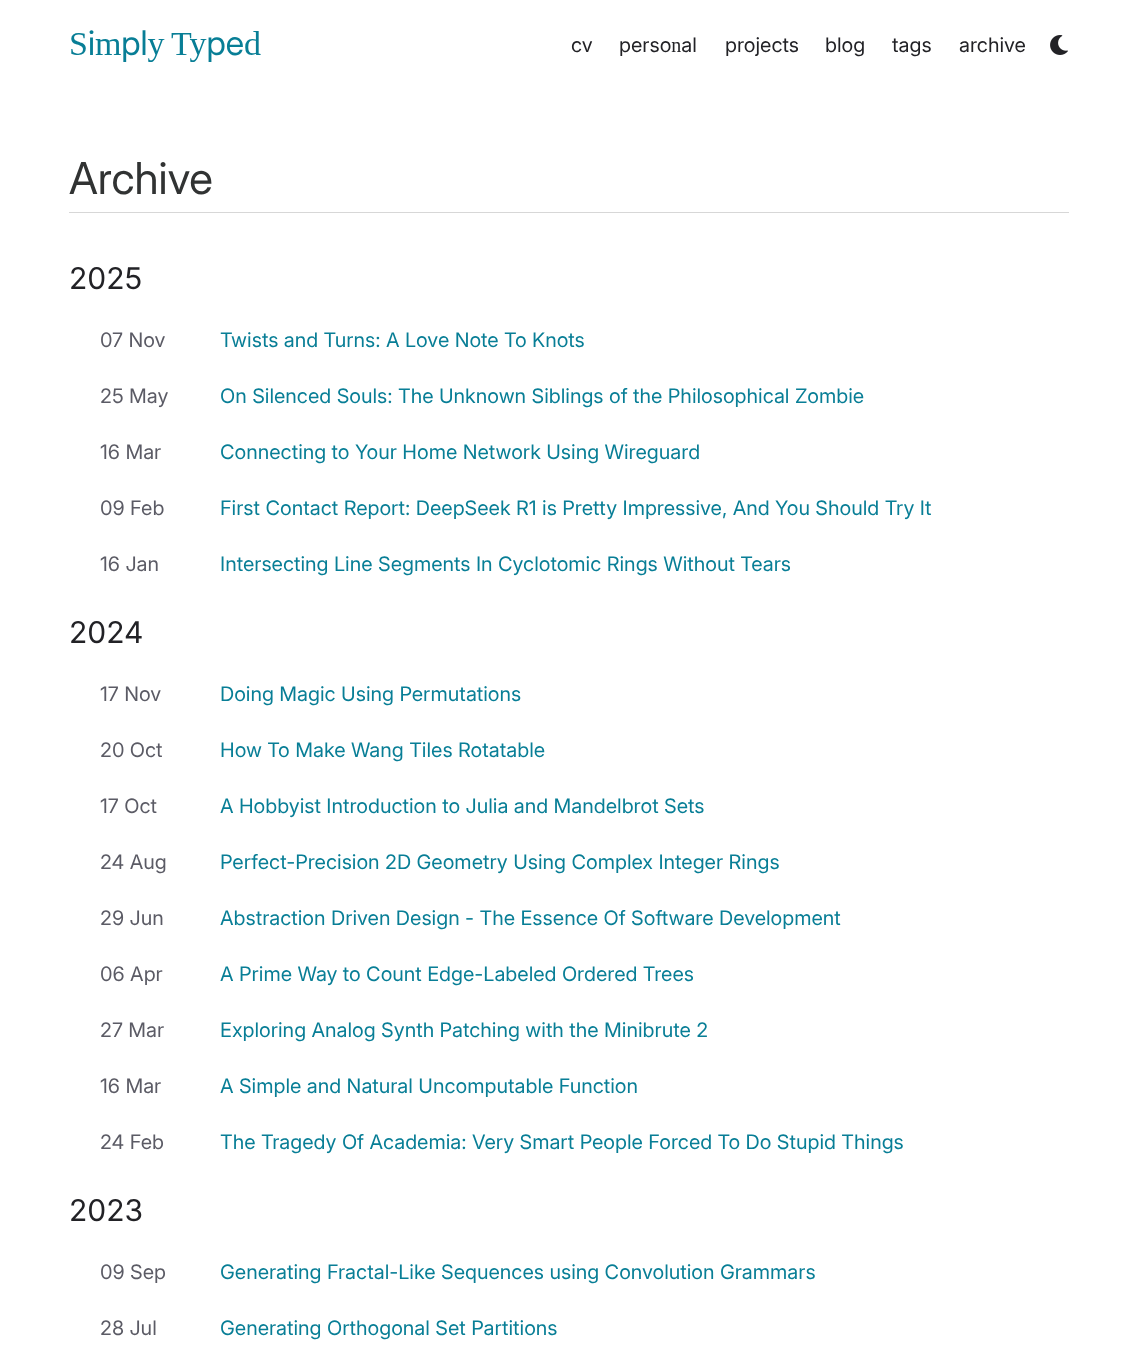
async function draw(canvas) {
	canvas.width = 1138;
	canvas.height = 1352;
	const c = canvas.getContext('2d');
	c.miterLimit = 4;
	c.fontKerning = 'normal';
	async function loadImage(src) {
		const img = new Image();
		img.src = src;
		await img.decode();
		return img;
	}

	c.fillStyle = '#fff';
	c.fillRect(0, 0, 1138, 1352);
	c.wordSpacing = '-2px';
	c.font = '34px "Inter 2"';
	c.fillStyle = '#087e96';
	c.fillText('Simply Typed', 69, 55);
	c.wordSpacing = '0px';
	c.font = '20px "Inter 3"';
	c.fillStyle = '#222226';
	for (const [text, x, y] of [
		['cv', 571, 52],
		['personal', 619, 52],
		['projects', 725, 52],
		['blog', 825, 52],
		['tags', 892, 52],
		['archive', 959, 52],
	]) {
		c.fillText(text, x, y);
	}
	c.drawImage(await loadImage('img1.png'), 1050, 35, 18, 20);
	c.fillStyle = '#d7d7d7';
	c.fillRect(69, 212, 1000, 1);
	c.font = '44px "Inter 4"';
	c.fillStyle = '#313333';
	c.fillText('Archive', 69, 194);
	c.font = '30px "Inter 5"';
	c.fillStyle = '#222226';
	c.fillText('2025', 69, 289);
	c.font = '20px Inter';
	c.fillStyle = '#5b5b65';
	c.fillText('07 Nov', 100, 347);
	c.fillStyle = '#087e96';
	c.fillText('Twists and Turns: A Love Note To Knots', 220, 347);
	c.fillStyle = '#5b5b65';
	c.fillText('25 May', 100, 403);
	c.fillStyle = '#087e96';
	c.fillText('On Silenced Souls: The Unknown Siblings of the Philosophical Zombie', 220, 403);
	c.fillStyle = '#5b5b65';
	c.fillText('16 Mar', 100, 459);
	c.fillStyle = '#087e96';
	c.fillText('Connecting to Your Home Network Using Wireguard', 220, 459);
	c.fillStyle = '#5b5b65';
	c.fillText('09 Feb', 100, 515);
	c.fillStyle = '#087e96';
	c.fillText('First Contact Report: DeepSeek R1 is Pretty Impressive, And You Should Try It', 220, 515);
	c.fillStyle = '#5b5b65';
	c.fillText('16 Jan', 100, 571);
	c.fillStyle = '#087e96';
	c.fillText('Intersecting Line Segments In Cyclotomic Rings Without Tears', 220, 571);
	c.font = '30px "Inter 5"';
	c.fillStyle = '#222226';
	c.fillText('2024', 69, 643);
	c.font = '20px Inter';
	c.fillStyle = '#5b5b65';
	c.fillText('17 Nov', 100, 701);
	c.fillStyle = '#087e96';
	c.fillText('Doing Magic Using Permutations', 220, 701);
	c.fillStyle = '#5b5b65';
	c.fillText('20 Oct', 100, 757);
	c.fillStyle = '#087e96';
	c.fillText('How To Make Wang Tiles Rotatable', 220, 757);
	c.fillStyle = '#5b5b65';
	c.fillText('17 Oct', 100, 813);
	c.fillStyle = '#087e96';
	c.fillText('A Hobbyist Introduction to Julia and Mandelbrot Sets', 220, 813);
	c.fillStyle = '#5b5b65';
	c.fillText('24 Aug', 100, 869);
	c.fillStyle = '#087e96';
	c.fillText('Perfect-Precision 2D Geometry Using Complex Integer Rings', 220, 869);
	c.fillStyle = '#5b5b65';
	c.fillText('29 Jun', 100, 925);
	c.fillStyle = '#087e96';
	c.fillText('Abstraction Driven Design - The Essence Of Software Development', 220, 925);
	c.fillStyle = '#5b5b65';
	c.fillText('06 Apr', 100, 981);
	c.fillStyle = '#087e96';
	c.fillText('A Prime Way to Count Edge-Labeled Ordered Trees', 220, 981);
	c.fillStyle = '#5b5b65';
	c.fillText('27 Mar', 100, 1037);
	c.fillStyle = '#087e96';
	c.fillText('Exploring Analog Synth Patching with the Minibrute 2', 220, 1037);
	c.fillStyle = '#5b5b65';
	c.fillText('16 Mar', 100, 1093);
	c.fillStyle = '#087e96';
	c.fillText('A Simple and Natural Uncomputable Function', 220, 1093);
	c.fillStyle = '#5b5b65';
	c.fillText('24 Feb', 100, 1149);
	c.fillStyle = '#087e96';
	c.fillText('The Tragedy Of Academia: Very Smart People Forced To Do Stupid Things', 220, 1149);
	c.font = '30px "Inter 5"';
	c.fillStyle = '#222226';
	c.fillText('2023', 69, 1221);
	c.font = '20px Inter';
	c.fillStyle = '#5b5b65';
	c.fillText('09 Sep', 100, 1279);
	c.fillStyle = '#087e96';
	c.fillText('Generating Fractal-Like Sequences using Convolution Grammars', 220, 1279);
	c.fillStyle = '#5b5b65';
	c.fillText('28 Jul', 100, 1335);
	c.fillStyle = '#087e96';
	c.fillText('Generating Orthogonal Set Partitions', 220, 1335);
}

draw(document.querySelector('canvas'));
